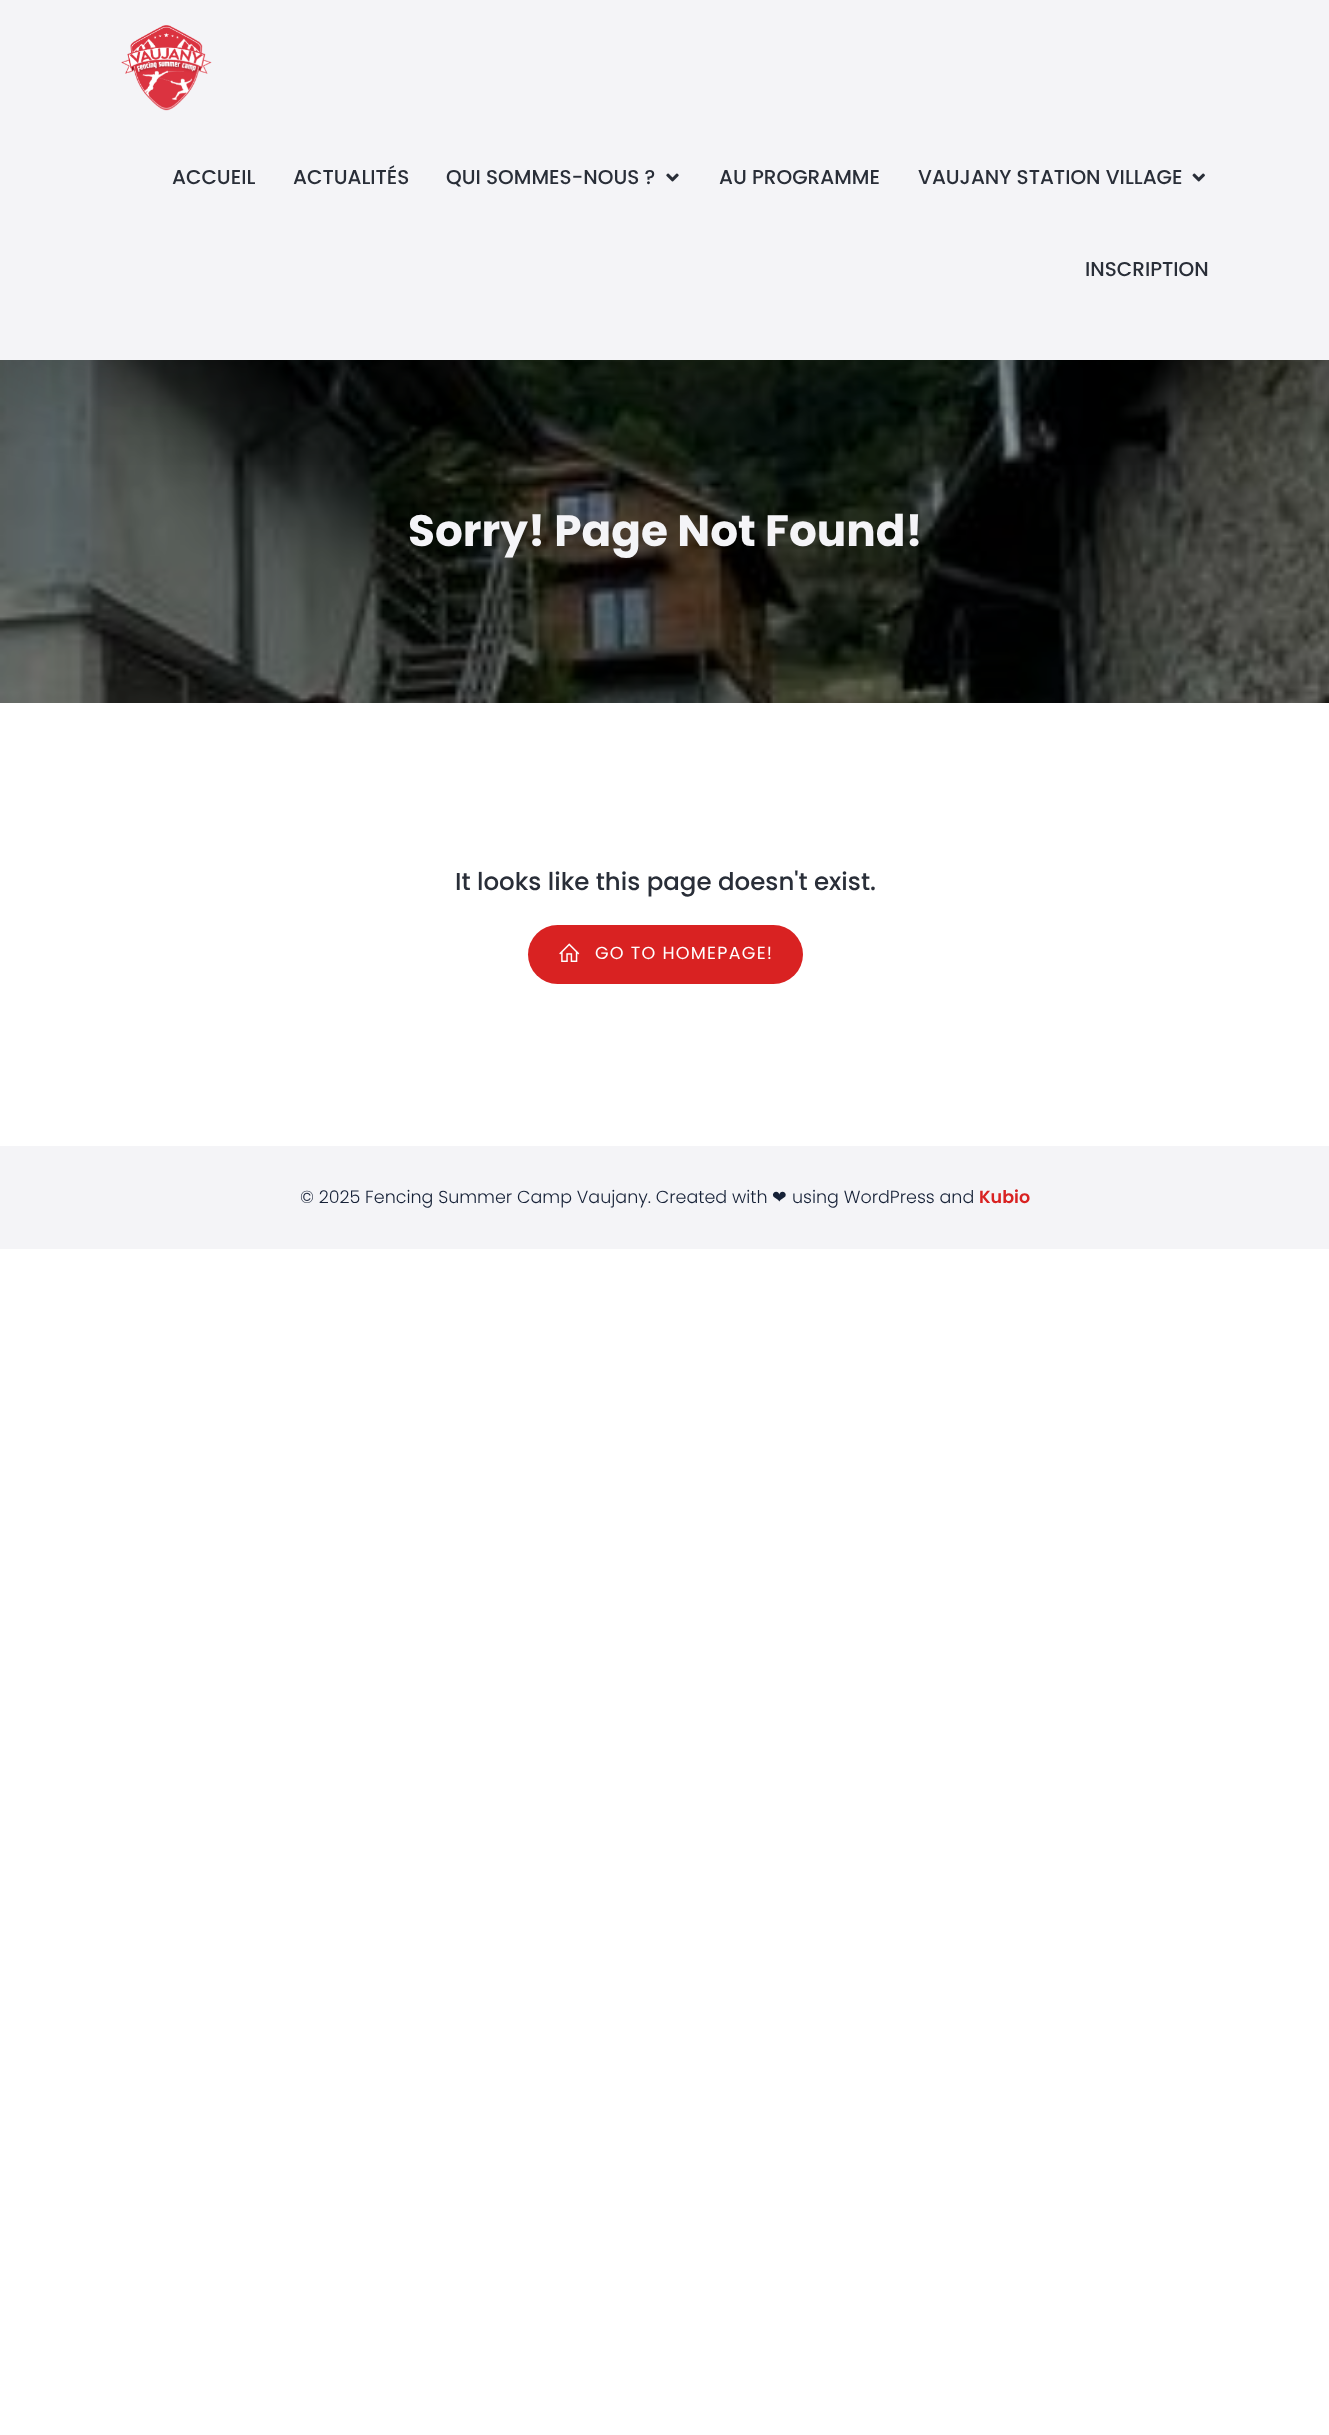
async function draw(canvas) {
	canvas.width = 1329;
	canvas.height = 2435;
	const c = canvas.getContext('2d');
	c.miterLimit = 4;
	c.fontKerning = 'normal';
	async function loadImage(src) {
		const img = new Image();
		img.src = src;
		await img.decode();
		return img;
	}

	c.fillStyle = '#fff';
	c.fillRect(0, 0, 1329, 2435);
	c.drawImage(await loadImage('img4.png'), 0, 360, 1329, 343);
	c.fillStyle = '#00000033';
	c.filter = 'blur(44.5px)';
	c.beginPath();
	c.rect(13, 36, 1305, 335);
	c.fill();
	c.filter = 'none';
	c.fillStyle = '#f4f4f7';
	c.fillRect(0, 0, 1329, 360);
	c.drawImage(await loadImage('img1.png'), 121, 25, 91, 86);
	c.font = '500 20px Poppins';
	c.fillStyle = '#292e38';
	for (const [text, x, y] of [
		['ACCUEIL', 172, 184],
		['ACTUALITÉS', 293, 184],
		['QUI SOMMES-NOUS ?', 446, 184],
	]) {
		c.fillText(text, x, y);
	}
	c.drawImage(await loadImage('img2.png'), 666, 173, 13, 9);
	c.fillText('AU PROGRAMME', 719, 184);
	c.fillText('VAUJANY STATION VILLAGE', 918, 184);
	c.drawImage(await loadImage('img3.png'), 1192, 173, 13, 9);
	c.fillText('INSCRIPTION', 1085, 276);
	c.font = 'bold 43.75px Poppins';
	c.fillStyle = '#f4f4f7';
	c.fillText('Sorry! Page Not Found!', 408, 546);
	c.font = '500 24.5px Poppins';
	c.fillStyle = '#292e38';
	c.fillText('It looks like this page doesn\'t exist.', 455, 890);
	c.fillStyle = '#d92222';
	c.beginPath();
	c.roundRect(528, 925, 275, 59, 29.5);
	c.fill();
	c.drawImage(await loadImage('img5.png'), 559, 943, 21, 19);
	c.letterSpacing = '1.25px';
	c.font = '17.5px Poppins';
	c.fillStyle = '#fff';
	c.fillText('GO TO HOMEPAGE!', 595, 959);
	c.fillStyle = '#f4f4f7';
	c.fillRect(0, 1146, 1329, 103);
	c.letterSpacing = '0px';
	c.font = '300 17.5px Poppins';
	c.fillStyle = '#162137';
	c.fillText('© 2025 Fencing Summer Camp Vaujany. Created with', 300, 1203);
	c.font = '17.5px DejaVu Sans';
	c.fillText('❤', 772, 1203);
	c.font = '300 17.5px Poppins';
	c.fillText('using WordPress and', 792, 1203);
	c.font = '600 17.5px Poppins';
	c.fillStyle = '#d92222';
	c.fillText('Kubio', 979, 1203);
}

draw(document.querySelector('canvas'));
